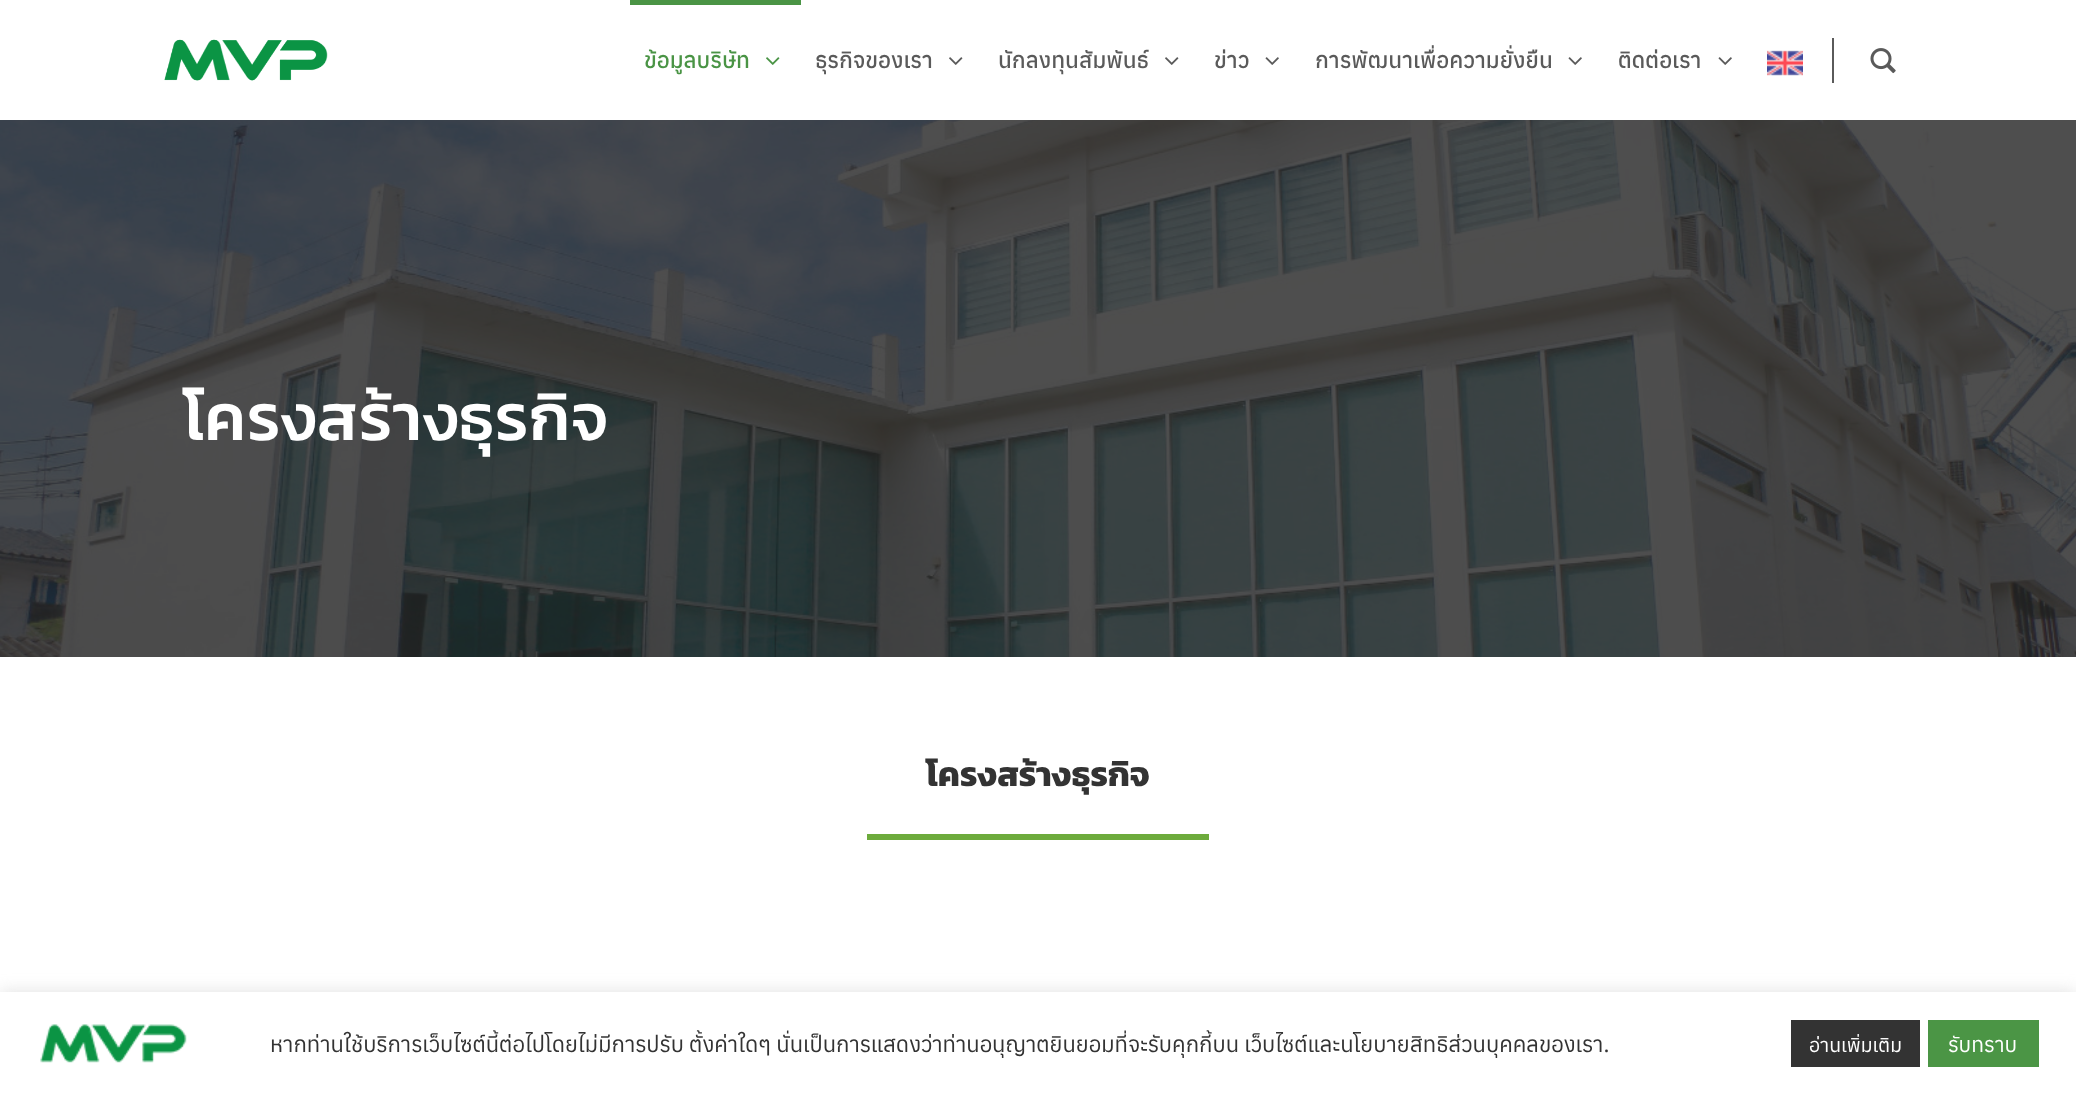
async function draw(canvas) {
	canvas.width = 2076;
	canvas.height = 1094;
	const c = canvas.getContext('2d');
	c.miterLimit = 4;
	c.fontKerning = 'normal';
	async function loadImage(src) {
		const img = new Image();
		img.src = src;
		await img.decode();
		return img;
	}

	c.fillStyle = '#fff';
	c.fillRect(0, 0, 2076, 1094);
	c.drawImage(await loadImage('img1.png'), 164, 39, 164, 42);
	c.fillStyle = '#4a9445';
	c.fillRect(630, 0, 171, 5);
	c.font = '500 22.5px Anuphan';
	c.fillText('ข้อมูลบริษัท', 644, 68);
	c.drawImage(await loadImage('img2.png'), 766, 57, 14, 8);
	c.fillStyle = '#5a5a5a';
	c.fillText('ธุรกิจของเรา', 815, 68);
	c.drawImage(await loadImage('img3.png'), 949, 57, 14, 8);
	c.fillText('นักลงทุนสัมพันธ์', 998, 68);
	c.drawImage(await loadImage('img3.png'), 1165, 57, 14, 8);
	c.fillText('ข่าว', 1214, 68);
	c.drawImage(await loadImage('img4.png'), 1265, 57, 14, 8);
	c.fillText('การพัฒนาเพื่อความยั่งยืน', 1315, 68);
	c.drawImage(await loadImage('img4.png'), 1568, 57, 14, 8);
	c.fillText('ติดต่อเรา', 1618, 68);
	c.drawImage(await loadImage('img4.png'), 1718, 57, 14, 8);
	c.drawImage(await loadImage('img5.png'), 1767, 50, 36, 26);
	c.fillRect(1832, 38, 2, 45);
	c.drawImage(await loadImage('img6.png'), 1870, 48, 26, 26);
	c.drawImage(await loadImage('img7.png'), 0, 120, 2076, 537);
	c.letterSpacing = '0.9px';
	c.font = '500 66px Kanit';
	c.fillStyle = '#fff';
	c.fillText('โครงสร้างธุรกิจ', 183, 440);
	c.letterSpacing = '0px';
	c.font = 'bold 34.5px Kanit';
	c.fillStyle = '#333';
	c.fillText('โครงสร้างธุรกิจ', 926, 786);
	c.fillStyle = '#6dab3c';
	c.fillRect(867, 834, 342, 6);
	c.fillStyle = '#acabab4d';
	c.filter = 'blur(7.5px)';
	c.beginPath();
	c.rect(0, 990, 2076, 104);
	c.fill();
	c.filter = 'none';
	c.fillStyle = '#fff';
	c.fillRect(0, 992, 2076, 102);
	c.drawImage(await loadImage('img8.png'), 40, 1024, 147, 39);
	c.font = '22px anuphan';
	c.fillStyle = '#333';
	c.fillText('หากท่านใช้บริการเว็บไซต์นี้ต่อไปโดยไม่มีการปรับ ตั้งค่าใดๆ นั่นเป็นการแสดงว่าท่านอนุญาตยินยอมที่จะรับคุกกี้บน เว็บไซต์และนโยบายสิทธิส่วนบุคคลของเรา.', 270, 1052);
	c.fillRect(1791, 1020, 129, 47);
	c.font = '19.5px anuphan';
	c.fillStyle = '#fff';
	c.fillText('อ่านเพิ่มเติม', 1809, 1052);
	c.fillStyle = '#4b9545';
	c.fillRect(1928, 1020, 111, 47);
	c.font = '21px anuphan';
	c.fillStyle = '#fff';
	c.fillText('รับทราบ', 1948, 1052);
}

draw(document.querySelector('canvas'));
